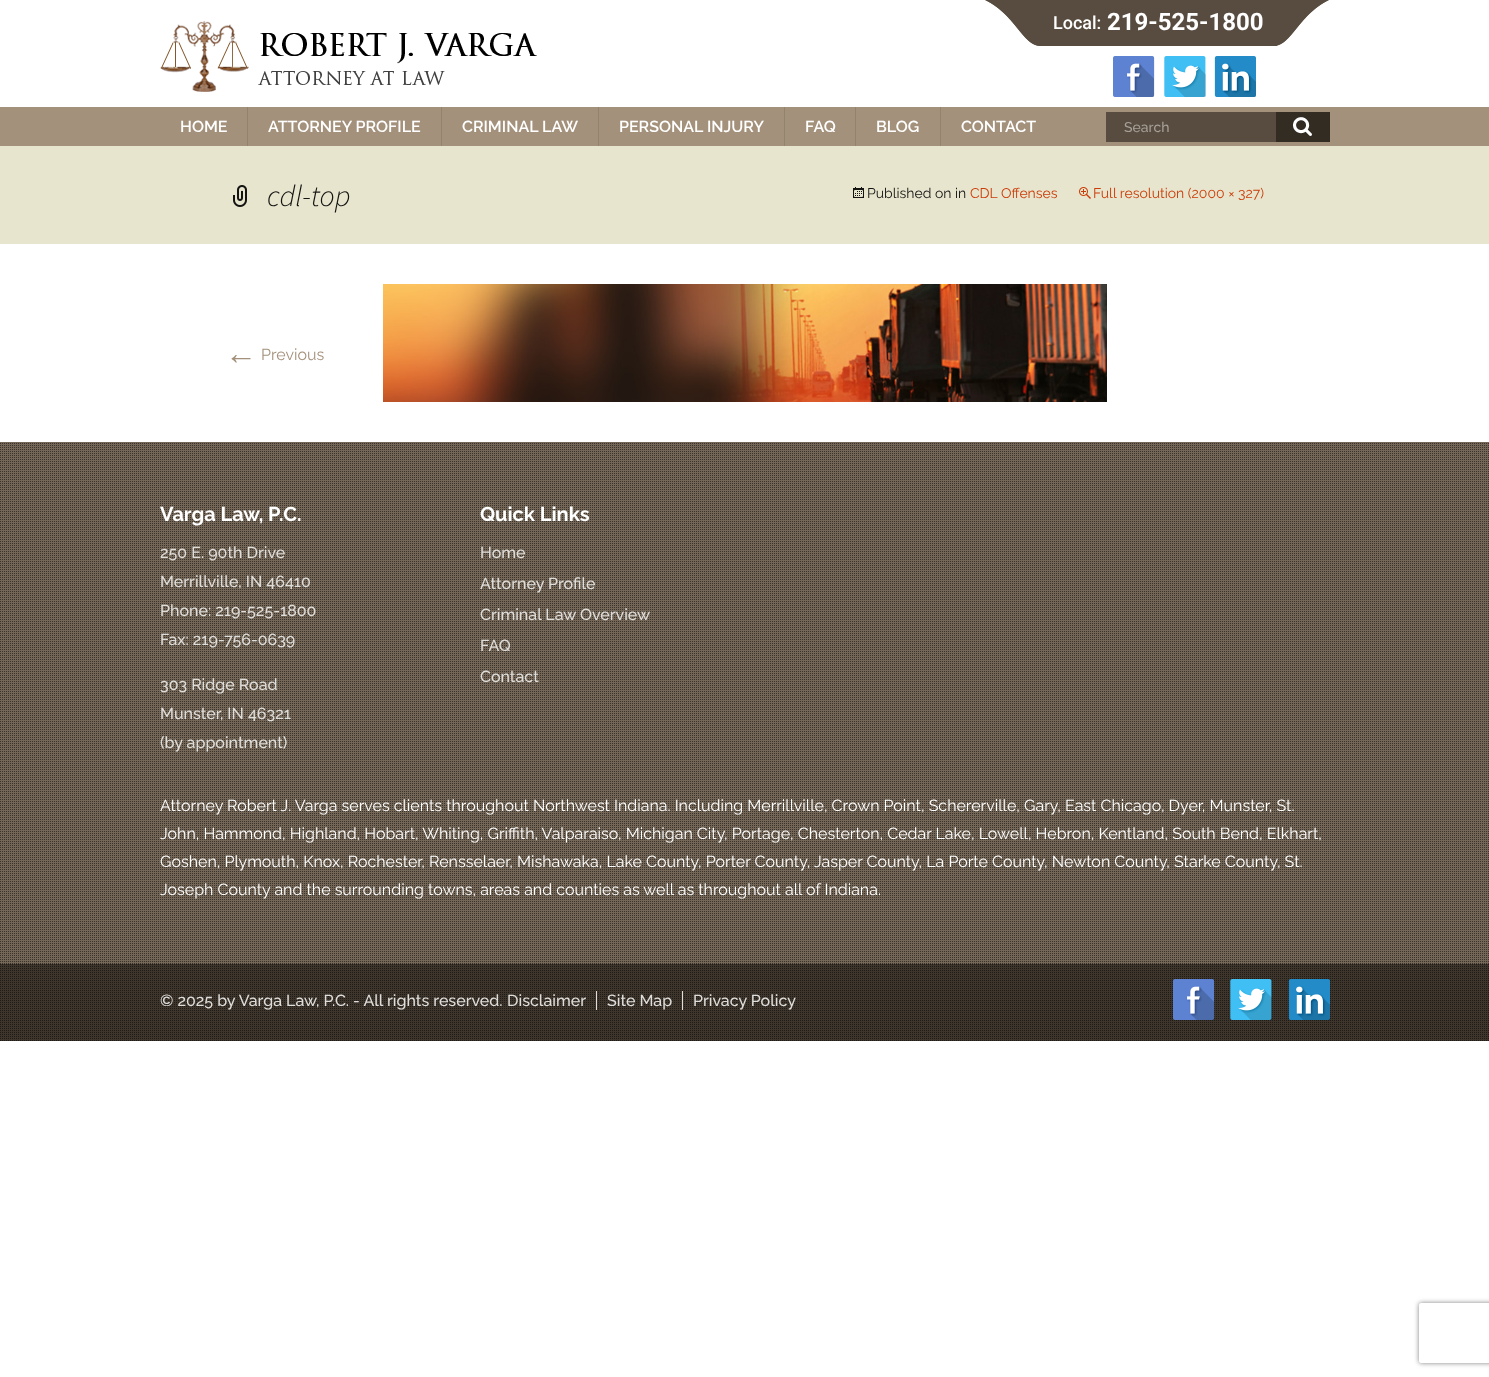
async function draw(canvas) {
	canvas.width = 1489;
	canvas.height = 1377;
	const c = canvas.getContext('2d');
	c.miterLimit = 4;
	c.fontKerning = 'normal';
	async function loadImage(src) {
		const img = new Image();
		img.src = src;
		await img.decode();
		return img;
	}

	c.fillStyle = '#fff';
	c.fillRect(0, 0, 1489, 1377);
	c.drawImage(await loadImage('img1.png'), 160, 21, 377, 71);
	c.fillStyle = '#574c3f';
	c.fillRect(1040, 0, 237, 46);
	c.drawImage(await loadImage('img2.png'), 985, 0, 55, 46);
	c.font = '500 18px Roboto';
	c.fillStyle = '#fff';
	c.fillText('Local:', 1053, 29);
	c.drawImage(await loadImage('img3.png'), 1277, 0, 52, 46);
	c.drawImage(await loadImage('img4.png'), 985, 0, 55, 46);
	c.font = 'bold 24px Roboto';
	c.fillText('219-525-1800', 1107, 30);
	c.drawImage(await loadImage('img5.png'), 1277, 0, 52, 46);
	c.drawImage(await loadImage('img6.png'), 1113, 56, 42, 41);
	c.drawImage(await loadImage('img7.png'), 1164, 56, 42, 41);
	c.drawImage(await loadImage('img8.png'), 1214, 56, 42, 41);
	c.fillStyle = '#a4917b';
	c.fillRect(0, 107, 1489, 39);
	c.fillStyle = '#93826e';
	c.fillRect(247, 107, 1, 39);
	c.font = '600 16px Raleway';
	c.fillStyle = '#fff';
	c.fillText('HOME', 180, 132);
	c.fillStyle = '#93826e';
	c.fillRect(441, 107, 1, 39);
	c.fillStyle = '#fff';
	c.fillText('ATTORNEY PROFILE', 268, 132);
	c.fillStyle = '#93826e';
	c.fillRect(598, 107, 1, 39);
	c.fillStyle = '#fff';
	c.fillText('CRIMINAL LAW', 462, 132);
	c.fillStyle = '#93826e';
	c.fillRect(784, 107, 1, 39);
	c.fillStyle = '#fff';
	c.fillText('PERSONAL INJURY', 619, 132);
	c.fillStyle = '#93826e';
	c.fillRect(855, 107, 1, 39);
	c.fillStyle = '#fff';
	c.fillText('FAQ', 805, 132);
	c.fillStyle = '#93826e';
	c.fillRect(940, 107, 1, 39);
	c.fillStyle = '#fff';
	c.fillText('BLOG', 876, 132);
	c.fillText('CONTACT', 961, 132);
	c.fillStyle = '#574c3f';
	c.fillRect(1106, 112, 170, 30);
	c.font = '500 14px Raleway';
	c.fillStyle = '#a7a199';
	c.fillText('Search', 1124, 132);
	c.fillStyle = '#332c23';
	c.fillRect(1276, 112, 54, 30);
	c.drawImage(await loadImage('img9.png'), 1293, 117, 19, 19);
	c.fillStyle = '#e8e5ce';
	c.fillRect(0, 146, 1489, 98);
	c.drawImage(await loadImage('img10.png'), 233, 185, 14, 22);
	c.font = 'italic 300 30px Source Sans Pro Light';
	c.fillStyle = '#141412';
	c.fillText('cdl-top', 267, 206);
	c.drawImage(await loadImage('img11.png'), 853, 187, 11, 11);
	c.font = '14px Raleway';
	c.fillText('Published on in', 867, 198);
	c.fillStyle = '#ca3c08';
	c.fillText('CDL Offenses', 970, 198);
	c.drawImage(await loadImage('img12.png'), 1079, 187, 12, 12);
	c.fillText('Full resolution (2000 × 327)', 1093, 198);
	c.font = '32px Liberation Sans';
	c.fillStyle = '#a4917b';
	c.fillText('←', 225, 364);
	c.font = '16px Raleway';
	c.fillText('Previous', 261, 360);
	c.drawImage(await loadImage('img13.png'), 383, 284, 724, 118);
	c.drawImage(await loadImage('img14.png'), 0, 442, 1489, 522);
	c.font = 'bold 20px Raleway';
	c.fillStyle = '#fff';
	c.fillText('Varga Law, P.C.', 160, 521);
	c.font = '500 16px Raleway';
	c.fillStyle = '#e0dedb';
	for (const [text, x, y] of [
		['250 E. 90th Drive', 160, 558],
		['Merrillville, IN 46410', 160, 587],
		['Phone: 219-525-1800', 160, 616],
		['Fax: 219-756-0639', 160, 645],
		['303 Ridge Road', 160, 690],
		['Munster, IN 46321', 160, 719],
		['(by appointment)', 160, 748],
	]) {
		c.fillText(text, x, y);
	}
	c.font = 'bold 20px Raleway';
	c.fillStyle = '#fff';
	c.fillText('Quick Links', 480, 521);
	c.font = '500 16px Raleway';
	c.fillStyle = '#e0dedb';
	for (const [text, x, y] of [
		['Home', 480, 558],
		['Attorney Profile', 480, 589],
		['Criminal Law Overview', 480, 620],
		['FAQ', 480, 651],
		['Contact', 480, 682],
	]) {
		c.fillText(text, x, y);
	}
	c.font = '16px Raleway';
	c.fillStyle = '#fff';
	for (const [text, x, y] of [
		['Attorney Robert J. Varga serves clients throughout Northwest Indiana. Including Merrillville, Crown Point, Schererville, Gary, East Chicago, Dyer, Munster, St.', 160, 811],
		['John, Hammond, Highland, Hobart, Whiting, Griffith, Valparaiso, Michigan City, Portage, Chesterton, Cedar Lake, Lowell, Hebron, Kentland, South Bend, Elkhart,', 160, 839],
		['Goshen, Plymouth, Knox, Rochester, Rensselaer, Mishawaka, Lake County, Porter County, Jasper County, La Porte County, Newton County, Starke County, St.', 160, 867],
		['Joseph County and the surrounding towns, areas and counties as well as throughout all of Indiana.', 160, 895],
	]) {
		c.fillText(text, x, y);
	}
	c.drawImage(await loadImage('img15.png'), 0, 964, 1489, 77);
	c.font = '500 16px Raleway';
	c.fillStyle = '#e0dedb';
	c.fillText('© 2025 by Varga Law, P.C. - All rights reserved.', 160, 1006);
	c.fillText('Disclaimer', 507, 1006);
	c.fillRect(596, 991, 1, 19);
	c.fillText('Site Map', 607, 1006);
	c.fillRect(682, 991, 1, 19);
	c.fillText('Privacy Policy', 693, 1006);
	c.drawImage(await loadImage('img16.png'), 1173, 979, 42, 41);
	c.drawImage(await loadImage('img17.png'), 1230, 979, 42, 41);
	c.drawImage(await loadImage('img18.png'), 1288, 979, 42, 41);
	c.save();
	c.beginPath();
	c.moveTo(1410, 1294);
	c.lineTo(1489, 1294);
	c.lineTo(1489, 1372);
	c.lineTo(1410, 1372);
	c.closePath();
	c.moveTo(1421, 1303);
	c.lineTo(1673, 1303);
	c.bezierCurveTo(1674, 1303, 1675, 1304, 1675, 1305);
	c.lineTo(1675, 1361);
	c.bezierCurveTo(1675, 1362, 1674, 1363, 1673, 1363);
	c.lineTo(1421, 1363);
	c.bezierCurveTo(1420, 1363, 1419, 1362, 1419, 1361);
	c.lineTo(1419, 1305);
	c.bezierCurveTo(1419, 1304, 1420, 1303, 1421, 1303);
	c.closePath();
	c.clip('evenodd');
	c.fillStyle = '#808080';
	c.filter = 'blur(2.5px)';
	c.beginPath();
	c.roundRect(1419, 1303, 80, 60, 2);
	c.fill();
	c.filter = 'none';
	c.restore();
}

draw(document.querySelector('canvas'));
